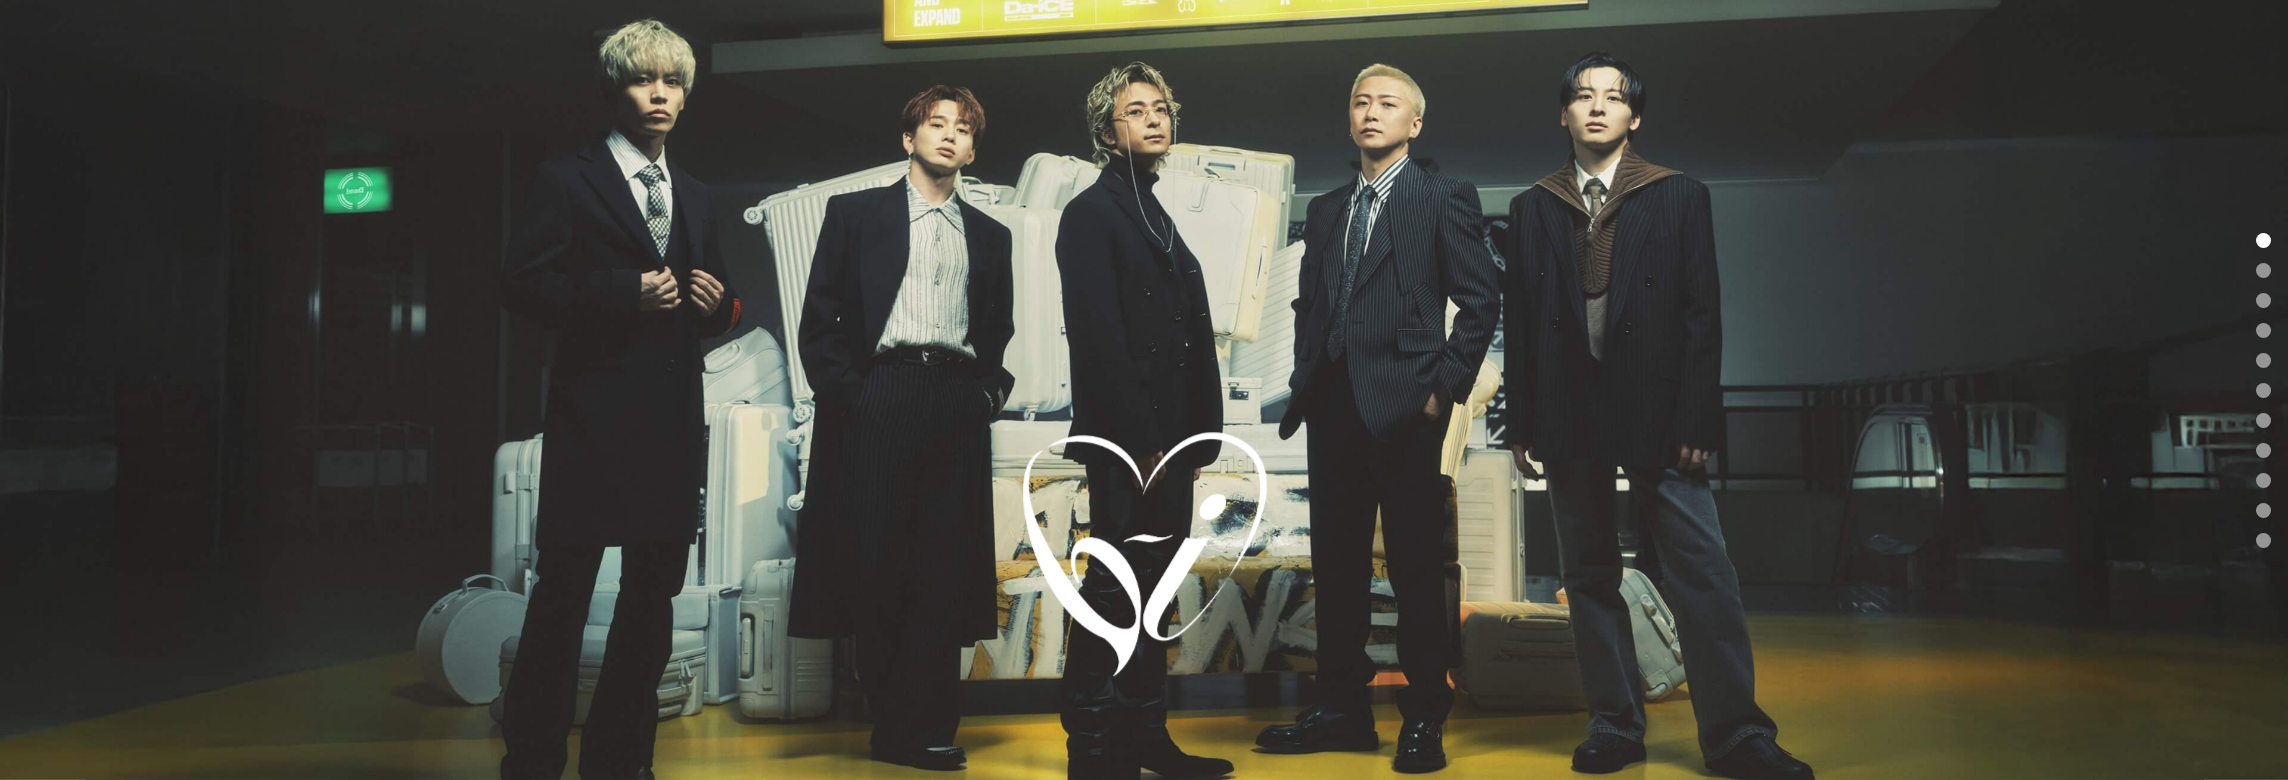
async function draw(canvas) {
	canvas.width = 2288;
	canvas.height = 780;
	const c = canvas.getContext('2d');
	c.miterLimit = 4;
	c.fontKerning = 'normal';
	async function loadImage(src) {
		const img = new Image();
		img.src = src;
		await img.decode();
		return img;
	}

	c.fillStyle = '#fff';
	c.fillRect(0, 0, 2288, 780);
	c.drawImage(await loadImage('img1.png'), 0, 0, 2288, 780);
	c.drawImage(await loadImage('img2.png'), 85, 0, 2119, 780);
	c.drawImage(await loadImage('img3.png'), 1023, 432, 245, 245);
	c.beginPath();
	c.arc(2263.5, 240.5, 7.5, 0, 2 * Math.PI);
	c.fill();
	c.fillStyle = '#969696';
	c.beginPath();
	c.arc(2263.5, 270.5, 7.5, 0, 2 * Math.PI);
	c.fill();
	c.beginPath();
	c.arc(2263.5, 300.5, 7.5, 0, 2 * Math.PI);
	c.fill();
	c.beginPath();
	c.arc(2263.5, 330.5, 7.5, 0, 2 * Math.PI);
	c.fill();
	c.beginPath();
	c.arc(2263.5, 360.5, 7.5, 0, 2 * Math.PI);
	c.fill();
	c.beginPath();
	c.arc(2263.5, 390.5, 7.5, 0, 2 * Math.PI);
	c.fill();
	c.beginPath();
	c.arc(2263.5, 420.5, 7.5, 0, 2 * Math.PI);
	c.fill();
	c.beginPath();
	c.arc(2263.5, 450.5, 7.5, 0, 2 * Math.PI);
	c.fill();
	c.beginPath();
	c.arc(2263.5, 480.5, 7.5, 0, 2 * Math.PI);
	c.fill();
	c.beginPath();
	c.arc(2263.5, 510.5, 7.5, 0, 2 * Math.PI);
	c.fill();
	c.beginPath();
	c.arc(2263.5, 540.5, 7.5, 0, 2 * Math.PI);
	c.fill();
}

draw(document.querySelector('canvas'));
